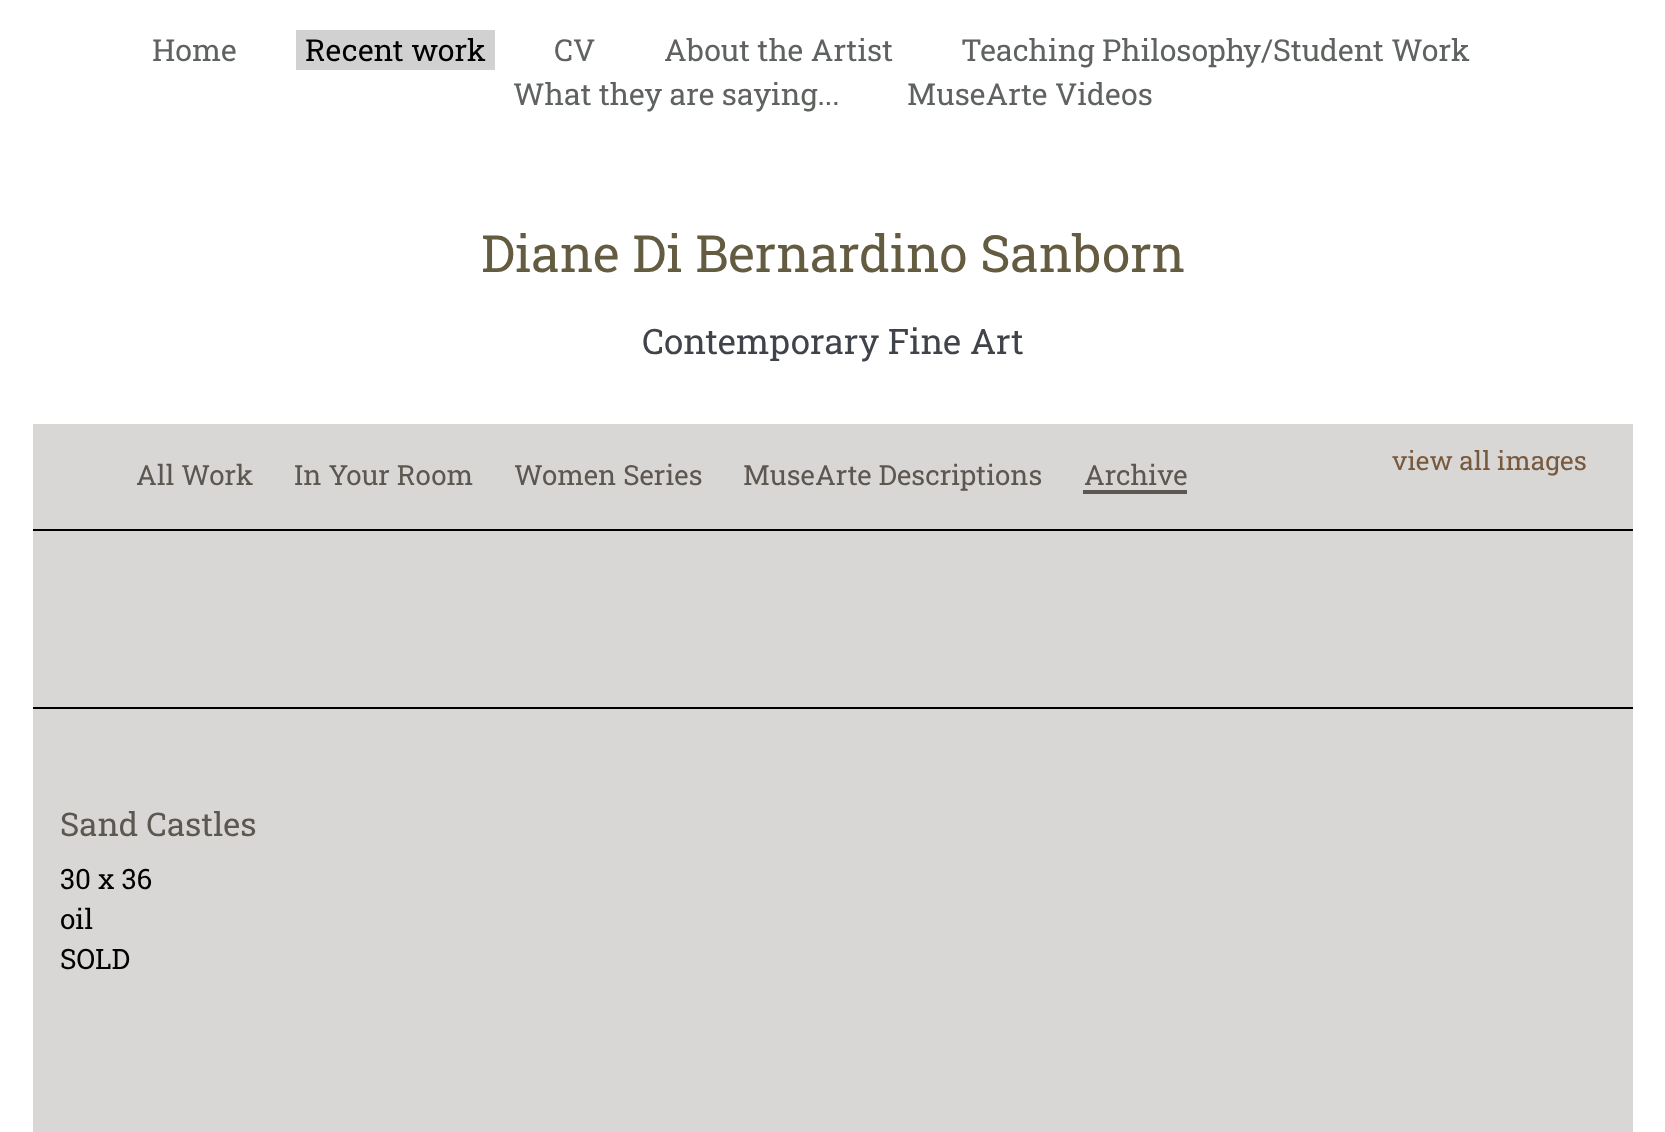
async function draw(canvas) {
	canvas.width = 1665;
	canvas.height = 1132;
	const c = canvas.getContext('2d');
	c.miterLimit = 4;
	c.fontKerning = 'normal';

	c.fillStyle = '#fff';
	c.fillRect(0, 0, 1665, 1132);
	c.font = '30.3px Roboto Slab';
	c.fillStyle = '#5f635f';
	c.fillText('Home', 152, 61);
	c.fillStyle = '#d1d1d1';
	c.fillRect(296, 30, 199, 40);
	c.fillStyle = '#000';
	c.fillText('Recent work', 305, 61);
	c.fillStyle = '#5f635f';
	for (const [text, x, y] of [
		['CV', 554, 61],
		['About the Artist', 664, 61],
		['Teaching Philosophy/Student Work', 961, 61],
		['What they are saying...', 513, 105],
		['MuseArte Videos', 907, 105],
	]) {
		c.fillText(text, x, y);
	}
	c.font = '51.3px Roboto Slab';
	c.fillStyle = '#635c40';
	c.fillText('Diane Di Bernardino Sanborn', 481, 272);
	c.font = '35px Roboto Slab';
	c.fillStyle = '#40434a';
	c.fillText('Contemporary Fine Art', 642, 354);
	c.fillStyle = '#d9d6d6';
	c.fillRect(33, 424, 1600, 708);
	c.font = '27.75px Roboto Slab';
	c.fillStyle = '#5c5751';
	for (const [text, x, y] of [
		['All Work', 136, 485],
		['In Your Room', 294, 485],
		['Women Series', 514, 485],
		['MuseArte Descriptions', 743, 485],
	]) {
		c.fillText(text, x, y);
	}
	c.fillRect(1083, 490, 104, 4);
	c.fillText('Archive', 1084, 485);
	c.font = '26.25px Roboto Slab';
	c.fillStyle = '#77593c';
	c.fillText('view all images', 1392, 470);
	c.fillStyle = '#000';
	c.fillRect(33, 529, 1600, 2);
	c.fillRect(33, 707, 1600, 2);
	c.font = '32.75px Roboto Slab';
	c.fillStyle = '#5c5751';
	c.fillText('Sand Castles', 60, 836);
	c.font = '28px Roboto Slab';
	c.fillStyle = '#000';
	for (const [text, x, y] of [
		['30 x 36', 60, 889],
		['oil', 60, 929],
		['SOLD', 60, 969],
	]) {
		c.fillText(text, x, y);
	}
}

draw(document.querySelector('canvas'));
